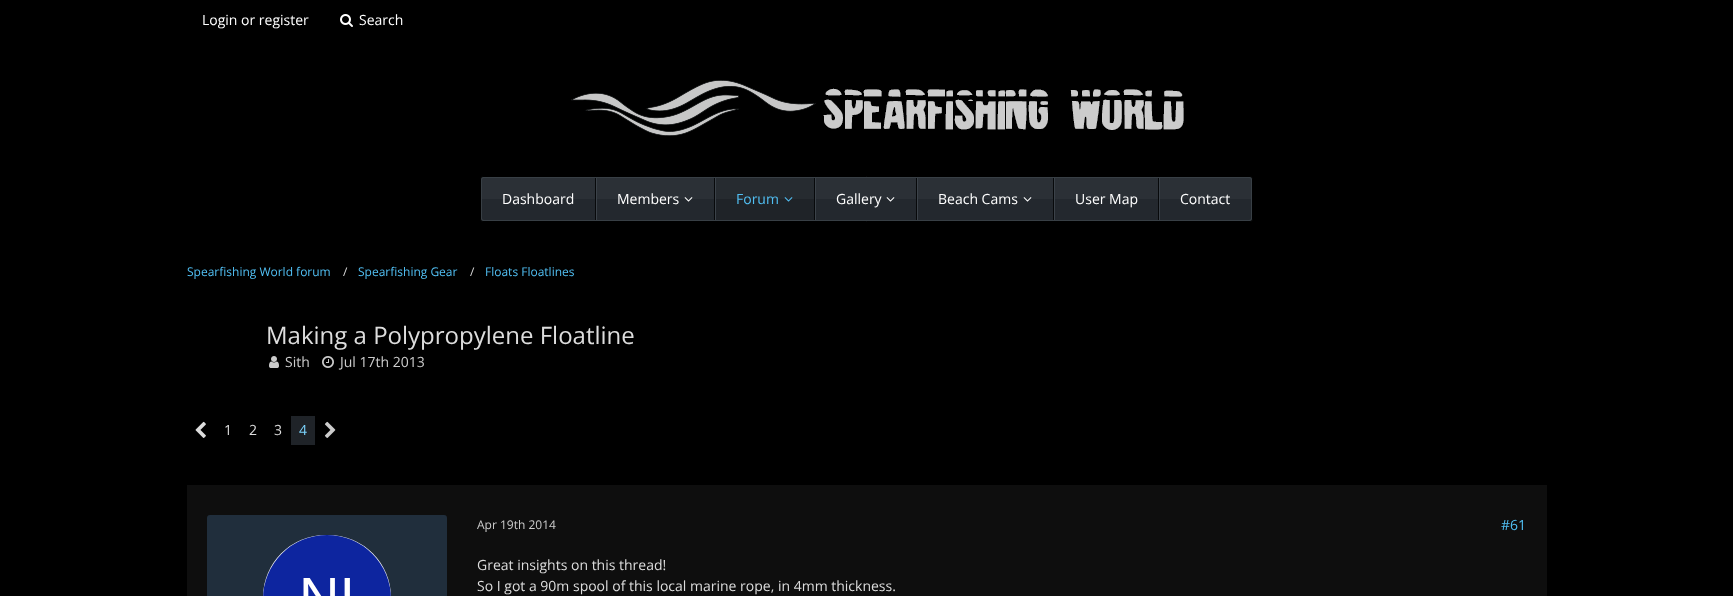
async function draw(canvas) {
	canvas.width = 1733;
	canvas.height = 596;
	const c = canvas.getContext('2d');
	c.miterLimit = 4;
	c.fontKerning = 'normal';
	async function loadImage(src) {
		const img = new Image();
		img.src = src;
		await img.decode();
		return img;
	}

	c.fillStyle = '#000';
	c.fillRect(0, 0, 1733, 596);
	c.font = '14px Open Sans';
	c.fillStyle = '#fff';
	c.fillText('Login or register', 202, 25);
	c.drawImage(await loadImage('img1.png'), 340, 14, 13, 13);
	c.fillText('Search', 359, 25);
	c.drawImage(await loadImage('img2.png'), 571, 80, 613, 56);
	c.fillStyle = '#383f45';
	c.beginPath();
	c.roundRect(480.5, 176.5, 772, 45, 2.5);
	c.fill();
	c.strokeStyle = '#000';
	c.stroke();
	c.fillStyle = '#2b3036';
	c.beginPath();
	c.roundRect(482, 178, 114, 21, [2, 0, 0, 0]);
	c.fill();
	c.fillStyle = '#23282e';
	c.beginPath();
	c.roundRect(482, 199, 114, 21, [0, 0, 0, 2]);
	c.fill();
	c.fillStyle = '#07090b';
	c.fillRect(595, 178, 1, 42);
	c.fillStyle = '#fff';
	c.fillText('Dashboard', 502, 204);
	for (const [x, y, w, h, color] of [
		[597, 199, 117, 21, '#23282e'],
		[597, 178, 117, 21, '#2b3036'],
		[714, 178, 1, 42, '#07090b'],
		[596, 178, 1, 42, '#3b4249'],
	]) {
		c.fillStyle = color;
		c.fillRect(x, y, w, h);
	}
	c.fillStyle = '#fff';
	c.fillText('Members', 617, 204);
	c.drawImage(await loadImage('img3.png'), 684, 197, 9, 5);
	for (const [x, y, w, h, color] of [
		[716, 199, 98, 21, '#1f2328'],
		[716, 178, 98, 21, '#262b30'],
		[814, 178, 1, 42, '#07090b'],
		[715, 178, 1, 42, '#3b4249'],
	]) {
		c.fillStyle = color;
		c.fillRect(x, y, w, h);
	}
	c.fillStyle = '#51bff3';
	c.fillText('Forum', 736, 204);
	c.drawImage(await loadImage('img4.png'), 784, 197, 9, 5);
	for (const [x, y, w, h, color] of [
		[816, 199, 100, 21, '#23282e'],
		[816, 178, 100, 21, '#2b3036'],
		[916, 178, 1, 42, '#07090b'],
		[815, 178, 1, 42, '#3b4249'],
	]) {
		c.fillStyle = color;
		c.fillRect(x, y, w, h);
	}
	c.fillStyle = '#fff';
	c.fillText('Gallery', 836, 204);
	c.drawImage(await loadImage('img3.png'), 886, 197, 9, 5);
	for (const [x, y, w, h, color] of [
		[918, 199, 135, 21, '#23282e'],
		[918, 178, 135, 21, '#2b3036'],
		[1053, 178, 1, 42, '#07090b'],
		[917, 178, 1, 42, '#3b4249'],
	]) {
		c.fillStyle = color;
		c.fillRect(x, y, w, h);
	}
	c.fillStyle = '#fff';
	c.fillText('Beach Cams', 938, 204);
	c.drawImage(await loadImage('img3.png'), 1023, 197, 9, 5);
	for (const [x, y, w, h, color] of [
		[1055, 199, 103, 21, '#23282e'],
		[1055, 178, 103, 21, '#2b3036'],
		[1158, 178, 1, 42, '#07090b'],
		[1054, 178, 1, 42, '#3b4249'],
	]) {
		c.fillStyle = color;
		c.fillRect(x, y, w, h);
	}
	c.fillStyle = '#fff';
	c.fillText('User Map', 1075, 204);
	c.fillStyle = '#2b3036';
	c.beginPath();
	c.roundRect(1159, 178, 92, 21, [0, 2, 0, 0]);
	c.fill();
	c.fillStyle = '#23282e';
	c.beginPath();
	c.roundRect(1159, 199, 92, 21, [0, 0, 2, 0]);
	c.fill();
	c.fillStyle = '#3b4249';
	c.fillRect(1159, 178, 1, 42);
	c.fillStyle = '#fff';
	c.fillText('Contact', 1180, 204);
	c.font = '12px Open Sans';
	c.fillStyle = '#51bff3';
	c.fillText('Spearfishing World forum', 187, 276);
	c.fillStyle = '#ddd';
	c.fillText('/', 343, 276);
	c.fillStyle = '#51bff3';
	c.fillText('Spearfishing Gear', 358, 276);
	c.fillStyle = '#ddd';
	c.fillText('/', 470, 276);
	c.fillStyle = '#51bff3';
	c.fillText('Floats Floatlines', 485, 276);
	c.font = '24px Open Sans';
	c.fillStyle = '#ddd';
	c.fillText('Making a Polypropylene Floatline', 266, 344);
	c.drawImage(await loadImage('img5.png'), 269, 356, 10, 12);
	c.font = '14px Open Sans';
	c.fillStyle = '#ccc';
	c.fillText('Sith', 285, 367);
	c.drawImage(await loadImage('img6.png'), 322, 356, 12, 12);
	c.fillText('Jul 17th 2013', 340, 367);
	c.drawImage(await loadImage('img7.png'), 195, 421, 11, 17);
	c.fillStyle = '#ddd';
	for (const [text, x, y] of [
		['1', 224, 435],
		['2', 249, 435],
		['3', 274, 435],
	]) {
		c.fillText(text, x, y);
	}
	c.fillStyle = '#1f2328';
	c.fillRect(291, 416, 24, 29);
	c.fillStyle = '#7cd4fd';
	c.fillText('4', 299, 435);
	c.drawImage(await loadImage('img8.png'), 324, 421, 12, 17);
	c.fillStyle = '#0e0e0e';
	c.fillRect(187, 485, 1360, 111);
	c.fillStyle = '#202e3c';
	c.beginPath();
	c.roundRect(207, 515, 240, 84, 3);
	c.fill();
	c.fillStyle = '#fff';
	c.beginPath();
	c.roundRect(263, 535, 128, 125, 64);
	c.fill();
	c.drawImage(await loadImage('img9.png'), 263, 535, 128, 61);
	c.font = '12px Open Sans';
	c.fillStyle = '#ccc';
	c.fillText('Apr 19th 2014', 477, 529);
	c.font = '14px Open Sans';
	c.fillStyle = '#51bff3';
	c.fillText('#61', 1501, 530);
	c.fillStyle = '#ddd';
	c.fillText('Great insights on this thread!', 477, 570);
	c.fillText('So I got a 90m spool of this local marine rope, in 4mm thickness.', 477, 591);
}

draw(document.querySelector('canvas'));
